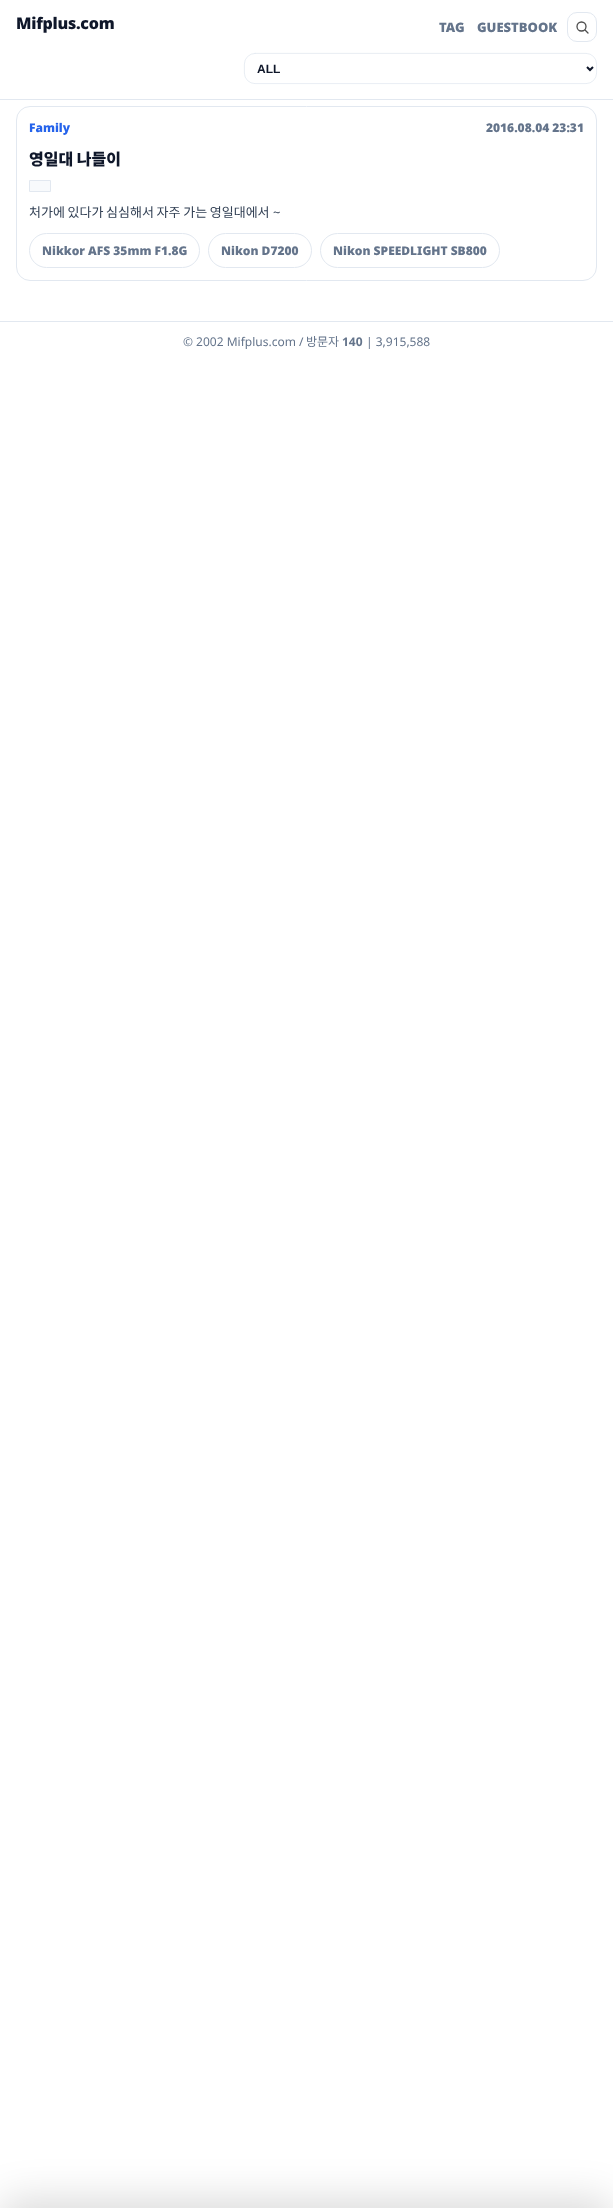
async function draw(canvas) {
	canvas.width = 613;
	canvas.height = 2208;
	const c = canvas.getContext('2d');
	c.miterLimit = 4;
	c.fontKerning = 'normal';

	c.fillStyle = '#fff';
	c.fillRect(0, 0, 613, 2208);
	c.fillStyle = '#e2e8f0';
	c.fillRect(0, 99, 613, 1);
	c.letterSpacing = '-0.25px';
	c.font = '900 16px Noto Sans';
	c.fillStyle = '#0f172a';
	c.fillText('Mifplus.com', 16, 29);
	c.letterSpacing = '0px';
	c.font = '900 13px Noto Sans';
	c.fillStyle = '#64748b';
	c.fillText('TAG', 439, 32);
	c.fillText('GUESTBOOK', 477, 32);
	c.beginPath();
	c.roundRect(567.5, 12.5, 29, 29, 9.5);
	c.strokeStyle = '#e2e8f0';
	c.stroke();
	c.beginPath();
	c.arc(581.5, 26.5, 4.5, 0, 2 * Math.PI);
	c.strokeStyle = '#4d4d4d';
	c.lineWidth = 1.3;
	c.stroke();
	c.beginPath();
	c.moveTo(588, 33);
	c.lineTo(585, 30);
	c.lineCap = 'round';
	c.stroke();
	c.beginPath();
	c.roundRect(244.4, 53.4, 352.2, 30.2, 10.6);
	c.strokeStyle = '#e2e8f0';
	c.lineWidth = 0.8;
	c.stroke();
	c.beginPath();
	c.moveTo(587, 67);
	c.lineTo(590, 70);
	c.lineTo(593, 67);
	c.strokeStyle = '#0f172a';
	c.lineWidth = 2;
	c.lineCap = 'butt';
	c.stroke();
	c.font = 'bold 12px Liberation Sans';
	c.fillStyle = '#0f172a';
	c.fillText('ALL', 257, 73);
	c.beginPath();
	c.roundRect(16.5, 106.5, 580, 174, 13.5);
	c.strokeStyle = '#e2e8f0';
	c.lineWidth = 1;
	c.stroke();
	c.font = '900 12px Noto Sans';
	c.fillStyle = '#2563eb';
	c.fillText('Family', 29, 132);
	c.fillStyle = '#64748b';
	c.fillText('2016.08.04 23:31', 486, 132);
	c.font = '900 16px Noto Sans KR';
	c.fillStyle = '#0f172a';
	c.fillText('영일대 나들이', 29, 165);
	c.fillStyle = '#f8fafc';
	c.beginPath();
	c.rect(29.5, 180.5, 21, 11);
	c.fill();
	c.stroke();
	c.wordSpacing = '-0.25px';
	c.font = '13px Noto Sans KR';
	c.fillStyle = '#334155';
	c.fillText('처가에 있다가 심심해서 자주 가는 영일대에서', 29, 217);
	c.wordSpacing = '0px';
	c.font = '13px Noto Sans';
	c.fillText('~', 273, 217);
	c.beginPath();
	c.roundRect(29.5, 233.5, 170, 34, 17);
	c.stroke();
	c.font = '900 12px Noto Sans';
	c.fillStyle = '#64748b';
	c.fillText('Nikkor AFS 35mm F1.8G', 42, 255);
	c.beginPath();
	c.roundRect(208.5, 233.5, 103, 34, 17);
	c.stroke();
	c.fillText('Nikon D7200', 221, 255);
	c.beginPath();
	c.roundRect(320.5, 233.5, 179, 34, 17);
	c.stroke();
	c.fillText('Nikon SPEEDLIGHT SB800', 333, 255);
	c.fillStyle = '#e2e8f0';
	c.fillRect(0, 321, 613, 1);
	c.font = '12px Noto Sans';
	c.fillStyle = '#64748b';
	c.fillText('© 2002 Mifplus.com /', 183, 346);
	c.font = '12px Noto Sans KR';
	c.fillText('방문자', 306, 346);
	c.font = 'bold 12px Noto Sans';
	c.fillText('140', 342, 346);
	c.font = '12px Noto Sans';
	c.fillText('| 3,915,588', 366, 346);
	c.fillStyle = '#00000026';
	c.filter = 'blur(20px)';
	c.beginPath();
	c.roundRect(0, 2200, 613, 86, 18);
	c.fill();
	c.filter = 'none';
}

draw(document.querySelector('canvas'));
